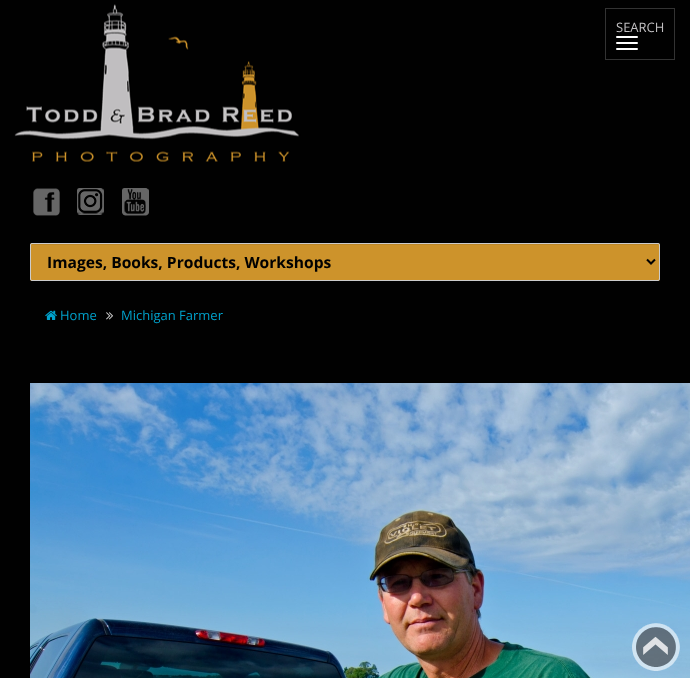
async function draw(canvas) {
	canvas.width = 690;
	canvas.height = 678;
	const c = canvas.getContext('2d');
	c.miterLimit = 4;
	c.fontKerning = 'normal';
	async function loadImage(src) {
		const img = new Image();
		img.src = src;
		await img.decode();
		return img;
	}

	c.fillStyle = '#010101';
	c.fillRect(0, 0, 690, 678);
	c.drawImage(await loadImage('img1.png'), 10, 0, 295, 166);
	c.strokeStyle = '#333';
	c.strokeRect(605.5, 8.5, 69, 51);
	c.font = '13px Open Sans';
	c.fillStyle = '#c1bfc1';
	c.fillText('SEARCH', 616, 32);
	c.fillStyle = '#fff';
	c.beginPath();
	c.roundRect(616, 36, 22, 2, 1);
	c.fill();
	c.beginPath();
	c.roundRect(616, 42, 22, 2, 1);
	c.fill();
	c.beginPath();
	c.roundRect(616, 48, 22, 2, 1);
	c.fill();
	c.drawImage(await loadImage('img2.png'), 33, 188, 27, 28);
	c.drawImage(await loadImage('img3.png'), 77, 188, 27, 27);
	c.drawImage(await loadImage('img4.png'), 122, 188, 27, 28);
	c.fillStyle = '#cd932b';
	c.beginPath();
	c.roundRect(30, 243, 630, 38, 2);
	c.fill();
	c.fillStyle = '#be8828';
	c.beginPath();
	c.moveTo(32, 245);
	c.lineTo(658, 245);
	c.bezierCurveTo(659, 245, 659, 245, 659, 246);
	c.bezierCurveTo(659, 245, 659, 244, 658, 244);
	c.lineTo(32, 244);
	c.bezierCurveTo(31, 244, 31, 245, 31, 246);
	c.bezierCurveTo(31, 245, 31, 245, 32, 245);
	c.closePath();
	c.fill();
	c.beginPath();
	c.roundRect(30.5, 243.5, 629, 37, 1.5);
	c.strokeStyle = '#ccc';
	c.stroke();
	c.beginPath();
	c.moveTo(647, 259.5);
	c.lineTo(651, 263.5);
	c.lineTo(655, 259.5);
	c.strokeStyle = '#010101';
	c.lineWidth = 2;
	c.stroke();
	c.font = 'bold 15.6px Open Sans';
	c.fillStyle = '#010101';
	c.fillText('Images, Books, Products, Workshops', 47, 268);
	c.drawImage(await loadImage('img5.png'), 45, 310, 12, 10);
	c.font = '13px Open Sans';
	c.fillStyle = '#00a1cb';
	c.fillText('Home', 60, 320);
	c.drawImage(await loadImage('img6.png'), 106, 312, 8, 8);
	c.fillText('Michigan Farmer', 121, 320);
	c.drawImage(await loadImage('img7.png'), 30, 383, 660, 295);
	c.drawImage(await loadImage('img8.png'), 632, 623, 48, 48);
}

draw(document.querySelector('canvas'));
